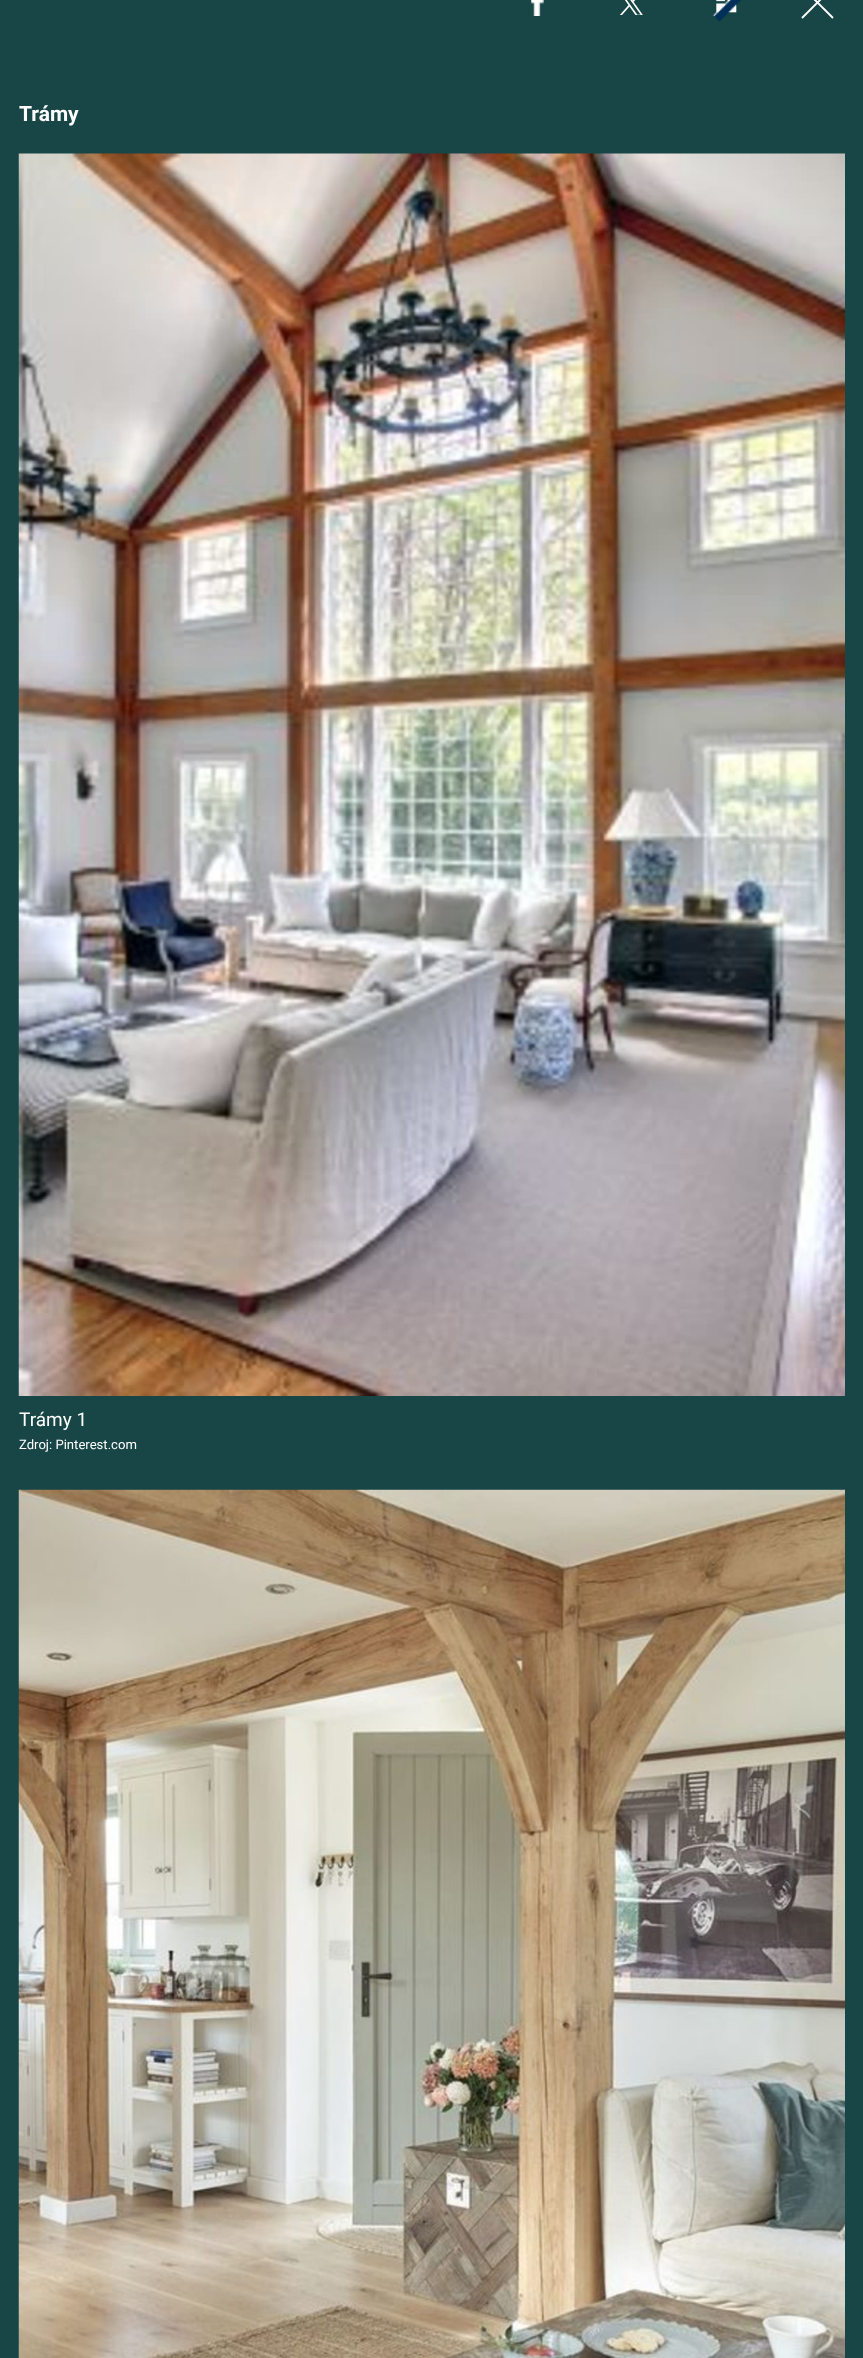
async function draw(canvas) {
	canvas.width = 863;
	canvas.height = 2358;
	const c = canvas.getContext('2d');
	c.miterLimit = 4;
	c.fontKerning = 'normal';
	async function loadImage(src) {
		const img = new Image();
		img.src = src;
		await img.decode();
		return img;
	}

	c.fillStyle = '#184546';
	c.fillRect(0, 0, 863, 2358);
	c.drawImage(await loadImage('img1.png'), 531, 0, 13, 16);
	c.drawImage(await loadImage('img2.png'), 620, 0, 23, 15);
	c.drawImage(await loadImage('img3.png'), 712, 0, 29, 22);
	c.beginPath();
	c.moveTo(802, -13);
	c.lineTo(833, 18);
	c.moveTo(833, -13);
	c.lineTo(802, 18);
	c.strokeStyle = '#fff';
	c.lineWidth = 1.9;
	c.stroke();
	c.font = 'bold 21px Roboto';
	c.fillStyle = '#fff';
	c.fillText('Trámy', 19, 121);
	c.drawImage(await loadImage('img4.png'), 18, 153, 827, 1243);
	c.font = '19px Roboto';
	c.fillText('Trámy 1', 19, 1426);
	c.font = '13.1px Roboto';
	c.fillText('Zdroj: Pinterest.com', 19, 1449);
	c.drawImage(await loadImage('img5.png'), 18, 1489, 827, 869);
}

draw(document.querySelector('canvas'));
